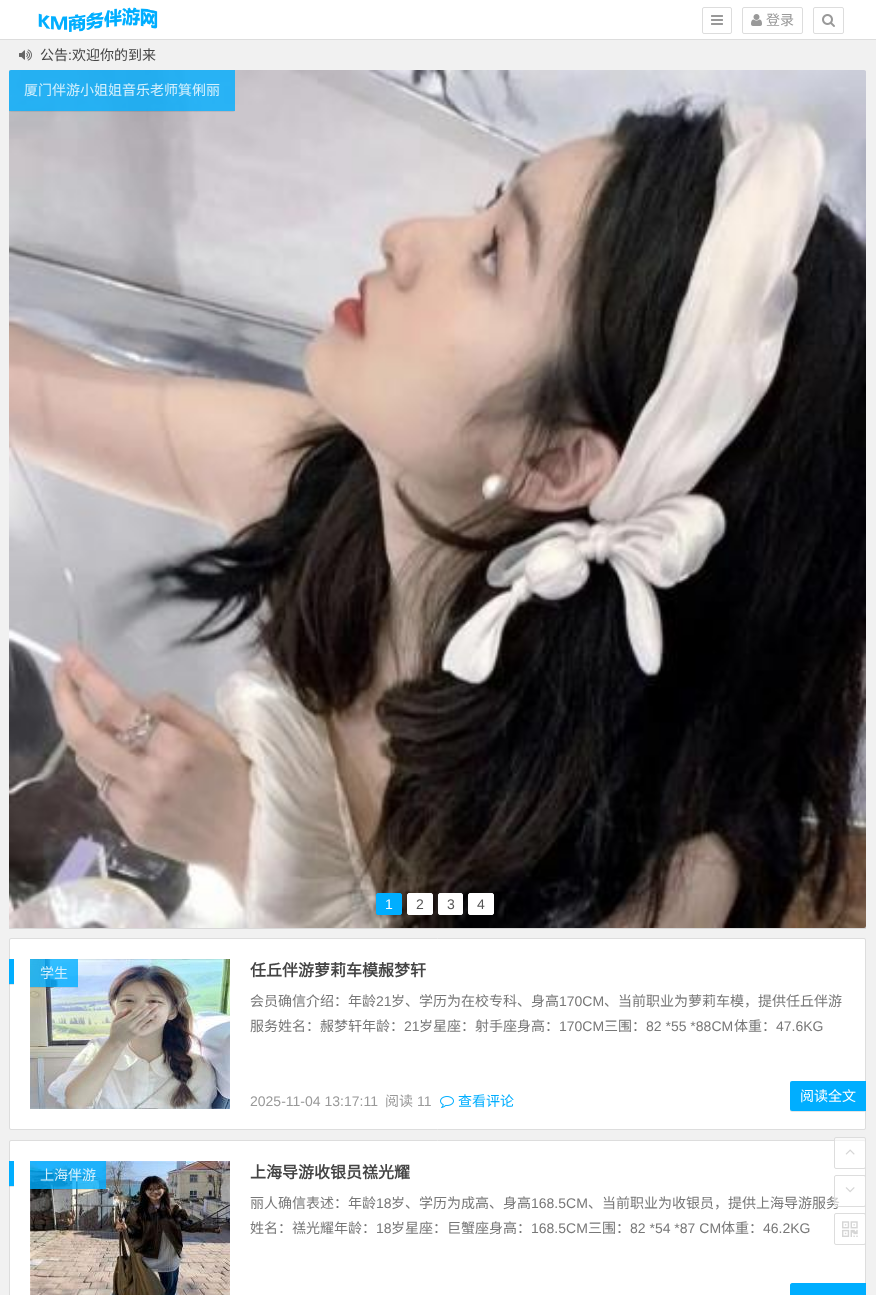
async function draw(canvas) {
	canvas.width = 876;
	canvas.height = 1295;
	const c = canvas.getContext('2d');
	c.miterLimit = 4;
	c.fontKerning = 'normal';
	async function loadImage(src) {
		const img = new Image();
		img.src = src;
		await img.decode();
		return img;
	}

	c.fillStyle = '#f1f1f1';
	c.fillRect(0, 0, 876, 1295);
	c.fillStyle = '#fff';
	c.fillRect(0, 0, 876, 39);
	c.fillStyle = '#ddd';
	c.fillRect(0, 39, 876, 1);
	c.drawImage(await loadImage('img1.png'), 38, 7, 120, 25);
	c.beginPath();
	c.roundRect(702.5, 7.5, 29, 26, 1.5);
	c.strokeStyle = '#ddd';
	c.stroke();
	c.drawImage(await loadImage('img2.png'), 711, 15, 12, 10);
	c.beginPath();
	c.roundRect(742.5, 7.5, 60, 26, 1.5);
	c.stroke();
	c.drawImage(await loadImage('img3.png'), 751, 14, 11, 12);
	c.font = '14px Noto Sans CJK SC';
	c.fillStyle = '#999';
	c.fillText('登录', 766, 25);
	c.beginPath();
	c.roundRect(813.5, 7.5, 30, 26, 1.5);
	c.stroke();
	c.drawImage(await loadImage('img4.png'), 822, 14, 13, 13);
	c.drawImage(await loadImage('img5.png'), 19, 49, 13, 12);
	c.fillStyle = '#444';
	c.fillText('公告', 40, 60);
	c.font = '14px Liberation Sans';
	c.fillText(':', 68, 60);
	c.font = '14px Noto Sans CJK SC';
	c.fillText('欢迎你的到来', 72, 60);
	c.fillStyle = '#0000001a';
	c.filter = 'blur(0.5px)';
	c.beginPath();
	c.rect(9, 71, 857, 858);
	c.fill();
	c.filter = 'none';
	c.drawImage(await loadImage('img6.png'), 9, 70, 857, 858);
	c.save();
	c.beginPath();
	c.rect(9, 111, 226, 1);
	c.clip();
	c.fillStyle = '#00000014';
	c.filter = 'blur(0.5px)';
	c.beginPath();
	c.roundRect(9, 71, 226, 41, 2);
	c.fill();
	c.filter = 'none';
	c.restore();
	c.fillStyle = '#00aeffcc';
	c.beginPath();
	c.roundRect(9, 70, 226, 41, [2, 0, 0, 0]);
	c.fill();
	c.fillStyle = '#d4f0fd';
	c.fillText('厦门伴游小姐姐音乐老师箕俐丽', 24, 95);
	c.fillStyle = '#00aeff';
	c.beginPath();
	c.roundRect(376.5, 893.5, 25, 21, 1.5);
	c.fill();
	c.strokeStyle = '#00aeff';
	c.stroke();
	c.font = '14px Liberation Sans';
	c.fillStyle = '#fff';
	c.fillText('1', 385, 909);
	c.beginPath();
	c.roundRect(407.5, 893.5, 25, 21, 1.5);
	c.fill();
	c.strokeStyle = '#fff';
	c.stroke();
	c.fillStyle = '#555';
	c.fillText('2', 416, 909);
	c.fillStyle = '#fff';
	c.beginPath();
	c.roundRect(438.5, 893.5, 24, 21, 1.5);
	c.fill();
	c.stroke();
	c.fillStyle = '#555';
	c.fillText('3', 447, 909);
	c.fillStyle = '#fff';
	c.beginPath();
	c.roundRect(468.5, 893.5, 25, 21, 1.5);
	c.fill();
	c.stroke();
	c.fillStyle = '#555';
	c.fillText('4', 477, 909);
	c.fillStyle = '#fff';
	c.beginPath();
	c.roundRect(9.5, 938.5, 856, 191, 1.5);
	c.fill();
	c.strokeStyle = '#ddd';
	c.stroke();
	c.drawImage(await loadImage('img7.png'), 30, 959, 200, 150);
	c.save();
	c.beginPath();
	c.rect(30, 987, 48, 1);
	c.clip();
	c.fillStyle = '#00000014';
	c.filter = 'blur(0.5px)';
	c.beginPath();
	c.rect(30, 960, 48, 28);
	c.fill();
	c.filter = 'none';
	c.restore();
	c.fillStyle = '#00aeffcc';
	c.fillRect(30, 959, 48, 28);
	c.font = '14px Noto Sans CJK SC';
	c.fillStyle = '#d4f0fd';
	c.fillText('学生', 40, 978);
	c.font = 'bold 16px Noto Sans CJK SC';
	c.fillStyle = '#444';
	c.fillText('任丘伴游萝莉车模赧梦轩', 250, 976);
	c.fillStyle = '#0000001a';
	c.filter = 'blur(0.5px)';
	c.beginPath();
	c.rect(9, 960, 5, 25);
	c.fill();
	c.filter = 'none';
	c.fillStyle = '#00aeff';
	c.fillRect(9, 959, 5, 25);
	c.font = '14px Noto Sans CJK SC';
	c.fillStyle = '#777';
	c.fillText('会员确信介绍：年龄', 250, 1006);
	c.font = '14px Liberation Sans';
	c.fillText('21', 376, 1006);
	c.font = '14px Noto Sans CJK SC';
	c.fillText('岁、学历为在校专科、身高', 391, 1006);
	c.font = '14px Liberation Sans';
	c.fillText('170CM', 559, 1006);
	c.font = '14px Noto Sans CJK SC';
	c.fillText('、当前职业为萝莉车模，提供任丘伴游', 604, 1006);
	c.fillText('服务姓名：赧梦轩年龄：', 250, 1031);
	c.font = '14px Liberation Sans';
	c.fillText('21', 404, 1031);
	c.font = '14px Noto Sans CJK SC';
	c.fillText('岁星座：射手座身高：', 419, 1031);
	c.font = '14px Liberation Sans';
	c.fillText('170CM', 559, 1031);
	c.font = '14px Noto Sans CJK SC';
	c.fillText('三围：', 604, 1031);
	c.font = '14px Liberation Sans';
	c.fillText('82 *55 *88CM', 646, 1031);
	c.font = '14px Noto Sans CJK SC';
	c.fillText('体重：', 734, 1031);
	c.font = '14px Liberation Sans';
	c.fillText('47.6KG', 776, 1031);
	c.fillStyle = '#999';
	c.fillText('2025-11-04 13:17:11', 250, 1106);
	c.font = '14px Noto Sans CJK SC';
	c.fillText('阅读', 385, 1106);
	c.font = '14px Liberation Sans';
	c.fillText('11', 417, 1106);
	c.drawImage(await loadImage('img8.png'), 440, 1096, 14, 12);
	c.font = '14px Noto Sans CJK SC';
	c.fillStyle = '#00aeff';
	c.fillText('查看评论', 458, 1106);
	c.fillStyle = '#0000001a';
	c.filter = 'blur(0.5px)';
	c.beginPath();
	c.roundRect(790, 1082, 76, 30, 2);
	c.fill();
	c.filter = 'none';
	c.fillStyle = '#00aeff';
	c.beginPath();
	c.roundRect(790, 1081, 76, 30, [2, 0, 0, 2]);
	c.fill();
	c.fillStyle = '#fff';
	c.fillText('阅读全文', 800, 1101);
	c.beginPath();
	c.roundRect(9.5, 1140.5, 856, 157, 1.5);
	c.fill();
	c.stroke();
	c.drawImage(await loadImage('img9.png'), 30, 1161, 200, 134);
	c.save();
	c.beginPath();
	c.rect(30, 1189, 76, 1);
	c.clip();
	c.fillStyle = '#00000014';
	c.filter = 'blur(0.5px)';
	c.beginPath();
	c.rect(30, 1162, 76, 28);
	c.fill();
	c.filter = 'none';
	c.restore();
	c.fillStyle = '#00aeffcc';
	c.fillRect(30, 1161, 76, 28);
	c.fillStyle = '#d4f0fd';
	c.fillText('上海伴游', 40, 1180);
	c.font = 'bold 16px Noto Sans CJK SC';
	c.fillStyle = '#444';
	c.fillText('上海导游收银员禚光耀', 250, 1178);
	c.fillStyle = '#0000001a';
	c.filter = 'blur(0.5px)';
	c.beginPath();
	c.rect(9, 1162, 5, 25);
	c.fill();
	c.filter = 'none';
	c.fillStyle = '#00aeff';
	c.fillRect(9, 1161, 5, 25);
	c.font = '14px Noto Sans CJK SC';
	c.fillStyle = '#777';
	c.fillText('丽人确信表述：年龄', 250, 1208);
	c.font = '14px Liberation Sans';
	c.fillText('18', 376, 1208);
	c.font = '14px Noto Sans CJK SC';
	c.fillText('岁、学历为成高、身高', 391, 1208);
	c.font = '14px Liberation Sans';
	c.fillText('168.5CM', 531, 1208);
	c.font = '14px Noto Sans CJK SC';
	c.fillText('、当前职业为收银员，提供上海导游服务', 588, 1208);
	c.fillText('姓名：禚光耀年龄：', 250, 1233);
	c.font = '14px Liberation Sans';
	c.fillText('18', 376, 1233);
	c.font = '14px Noto Sans CJK SC';
	c.fillText('岁星座：巨蟹座身高：', 391, 1233);
	c.font = '14px Liberation Sans';
	c.fillText('168.5CM', 531, 1233);
	c.font = '14px Noto Sans CJK SC';
	c.fillText('三围：', 588, 1233);
	c.font = '14px Liberation Sans';
	c.fillText('82 *54 *87 CM', 630, 1233);
	c.font = '14px Noto Sans CJK SC';
	c.fillText('体重：', 721, 1233);
	c.font = '14px Liberation Sans';
	c.fillText('46.2KG', 763, 1233);
	c.fillStyle = '#00aeff';
	c.beginPath();
	c.moveTo(792, 1283);
	c.lineTo(866, 1283);
	c.lineTo(866, 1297);
	c.lineTo(792, 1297);
	c.bezierCurveTo(791, 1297, 790, 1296, 790, 1295);
	c.lineTo(790, 1285);
	c.bezierCurveTo(790, 1284, 791, 1283, 792, 1283);
	c.closePath();
	c.fill();
	c.fillStyle = '#ffffff99';
	c.beginPath();
	c.roundRect(834.5, 1137.5, 31, 31, 1.5);
	c.fill();
	c.stroke();
	c.drawImage(await loadImage('img10.png'), 845, 1149, 10, 6);
	c.beginPath();
	c.roundRect(834.5, 1175.5, 31, 31, 1.5);
	c.fill();
	c.stroke();
	c.drawImage(await loadImage('img11.png'), 845, 1187, 10, 6);
	c.beginPath();
	c.roundRect(834.5, 1213.5, 31, 31, 1.5);
	c.fill();
	c.stroke();
	c.drawImage(await loadImage('img12.png'), 842, 1221, 16, 16);
}

draw(document.querySelector('canvas'));
